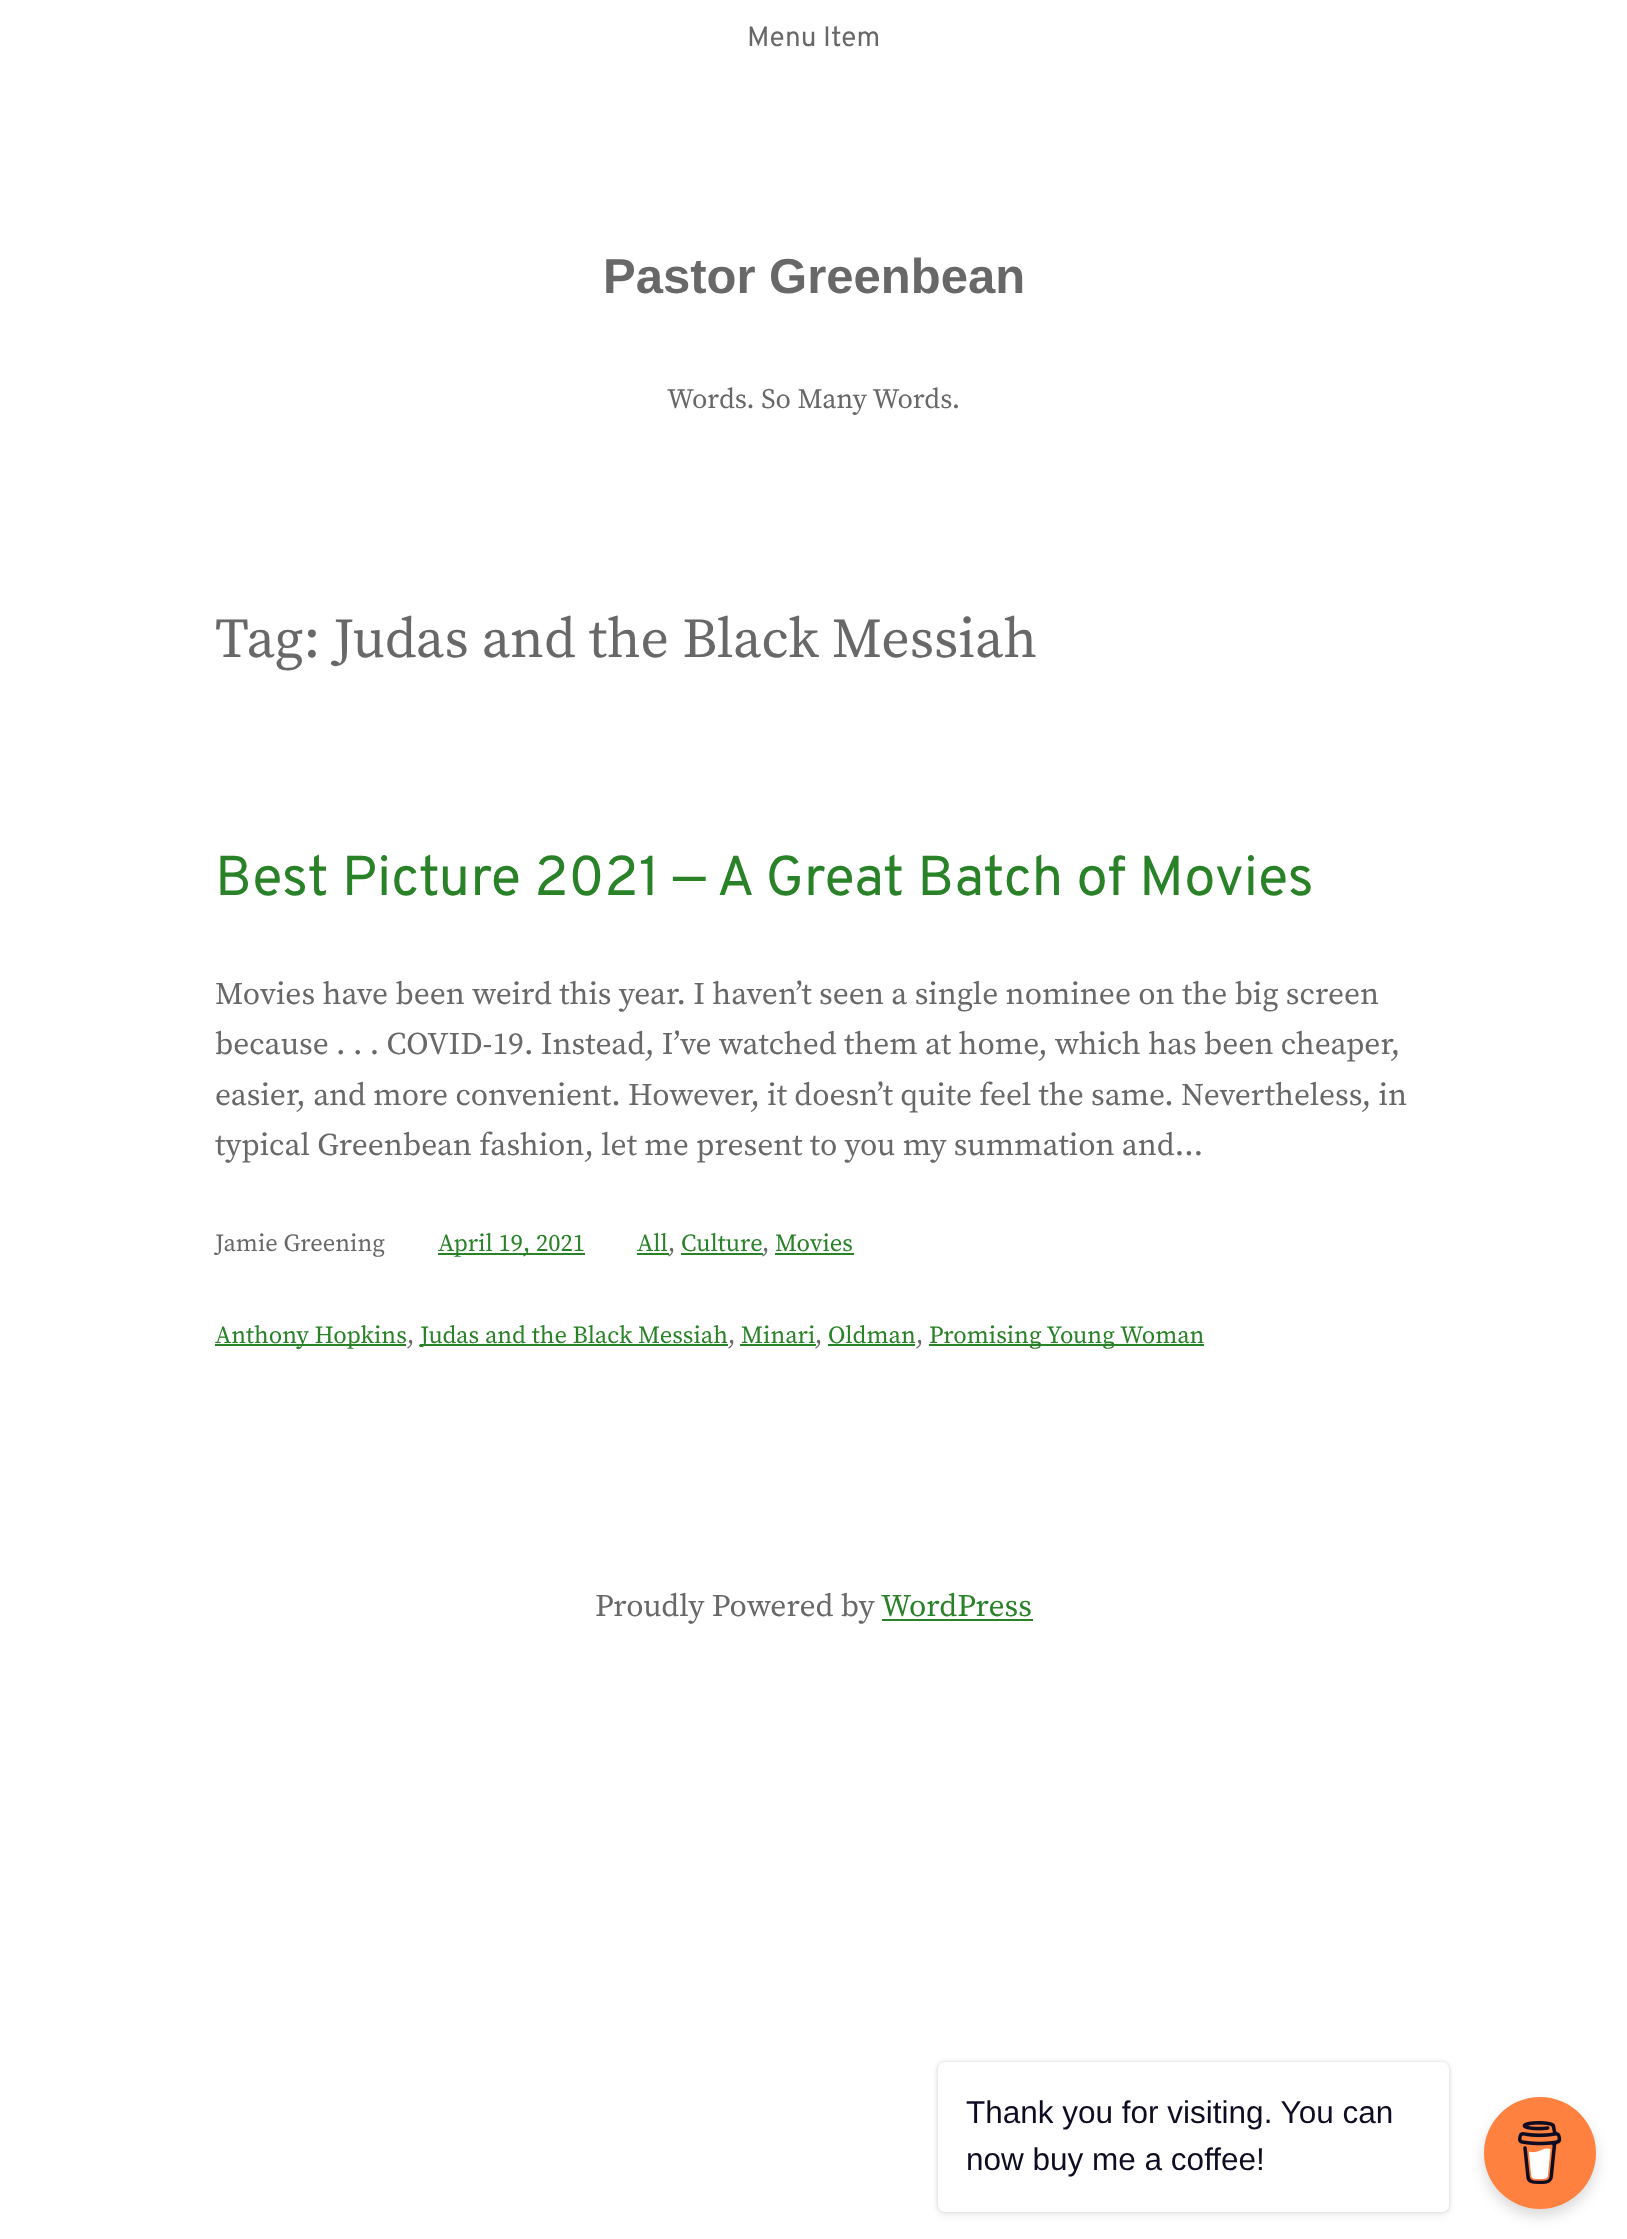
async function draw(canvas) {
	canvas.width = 1627;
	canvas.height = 2239;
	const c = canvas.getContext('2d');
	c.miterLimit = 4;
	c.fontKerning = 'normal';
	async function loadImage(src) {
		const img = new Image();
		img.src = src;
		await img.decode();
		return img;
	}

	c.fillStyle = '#fff';
	c.fillRect(0, 0, 1627, 2239);
	c.font = '28px Overpass';
	c.fillStyle = '#686868';
	c.fillText('Menu Item', 747, 46);
	c.font = 'bold 49px Liberation Sans';
	c.fillText('Pastor Greenbean', 603, 293);
	c.font = '28px Source Serif Pro';
	c.fillText('Words. So Many Words.', 667, 408);
	c.font = '56px Source Serif Pro';
	c.fillText('Tag: Judas and the Black Messiah', 215, 657);
	c.font = '56px Overpass';
	c.fillStyle = '#298228';
	c.fillText('Best Picture 2021 — A Great Batch of Movies', 215, 895);
	c.font = '31.5px Source Serif Pro';
	c.fillStyle = '#686868';
	for (const [text, x, y] of [
		['Movies have been weird this year. I haven’t seen a single nominee on the big screen', 215, 1004],
		['because . . . COVID-19. Instead, I’ve watched them at home, which has been cheaper,', 215, 1054],
		['easier, and more convenient. However, it doesn’t quite feel the same. Nevertheless, in', 215, 1105],
		['typical Greenbean fashion, let me present to you my summation and…', 215, 1155],
	]) {
		c.fillText(text, x, y);
	}
	c.font = '24.5px Source Serif Pro';
	c.fillText('Jamie Greening', 215, 1251);
	c.fillStyle = '#298228';
	c.fillRect(438, 1253, 147, 2);
	c.fillText('April 19, 2021', 438, 1251);
	c.fillText('All', 637, 1251);
	c.fillRect(637, 1253, 32, 2);
	c.fillStyle = '#686868';
	c.fillText(',', 668, 1251);
	c.fillStyle = '#298228';
	c.fillText('Culture', 681, 1251);
	c.fillRect(681, 1253, 82, 2);
	c.fillStyle = '#686868';
	c.fillText(',', 762, 1251);
	c.fillStyle = '#298228';
	c.fillText('Movies', 775, 1251);
	c.fillRect(775, 1253, 79, 2);
	c.fillRect(215, 1344, 191, 2);
	c.fillText('Anthony Hopkins', 215, 1343);
	c.fillStyle = '#686868';
	c.fillText(',', 407, 1343);
	c.fillStyle = '#298228';
	c.fillRect(420, 1344, 308, 2);
	c.fillText('Judas and the Black Messiah', 420, 1343);
	c.fillStyle = '#686868';
	c.fillText(',', 728, 1343);
	c.fillStyle = '#298228';
	c.fillText('Minari', 741, 1343);
	c.fillRect(740, 1344, 76, 2);
	c.fillStyle = '#686868';
	c.fillText(',', 815, 1343);
	c.fillStyle = '#298228';
	c.fillText('Oldman', 828, 1343);
	c.fillRect(828, 1344, 87, 2);
	c.fillStyle = '#686868';
	c.fillText(',', 916, 1343);
	c.fillStyle = '#298228';
	c.fillRect(929, 1344, 275, 2);
	c.fillText('Promising Young Woman', 929, 1343);
	c.font = '31.5px Source Serif Pro';
	c.fillStyle = '#686868';
	c.fillText('Proudly Powered by', 595, 1616);
	c.fillStyle = '#298228';
	c.fillText('WordPress', 881, 1616);
	c.fillRect(882, 1619, 151, 2);
	c.fillStyle = '#00000026';
	c.filter = 'blur(2px)';
	c.beginPath();
	c.roundRect(938, 2062, 511, 150, 7);
	c.fill();
	c.filter = 'none';
	c.fillStyle = '#0000000d';
	c.filter = 'blur(4.5px)';
	c.beginPath();
	c.roundRect(938, 2065, 511, 151, 7);
	c.fill();
	c.filter = 'none';
	c.fillStyle = '#fff';
	c.beginPath();
	c.roundRect(938, 2062, 511, 150, 7);
	c.fill();
	c.font = '31.5px Liberation Sans';
	c.fillStyle = '#0d0c22';
	c.fillText('Thank you for visiting. You can', 966, 2123);
	c.fillText('now buy me a coffee!', 966, 2170);
	c.fillStyle = '#00000026';
	c.filter = 'blur(7px)';
	c.beginPath();
	c.roundRect(1484, 2104, 112, 112, 56);
	c.fill();
	c.filter = 'none';
	c.fillStyle = '#ff813f';
	c.beginPath();
	c.arc(1540, 2153, 56, 0, 2 * Math.PI);
	c.fill();
	c.drawImage(await loadImage('img1.png'), 1518, 2121, 44, 63);
}

draw(document.querySelector('canvas'));
